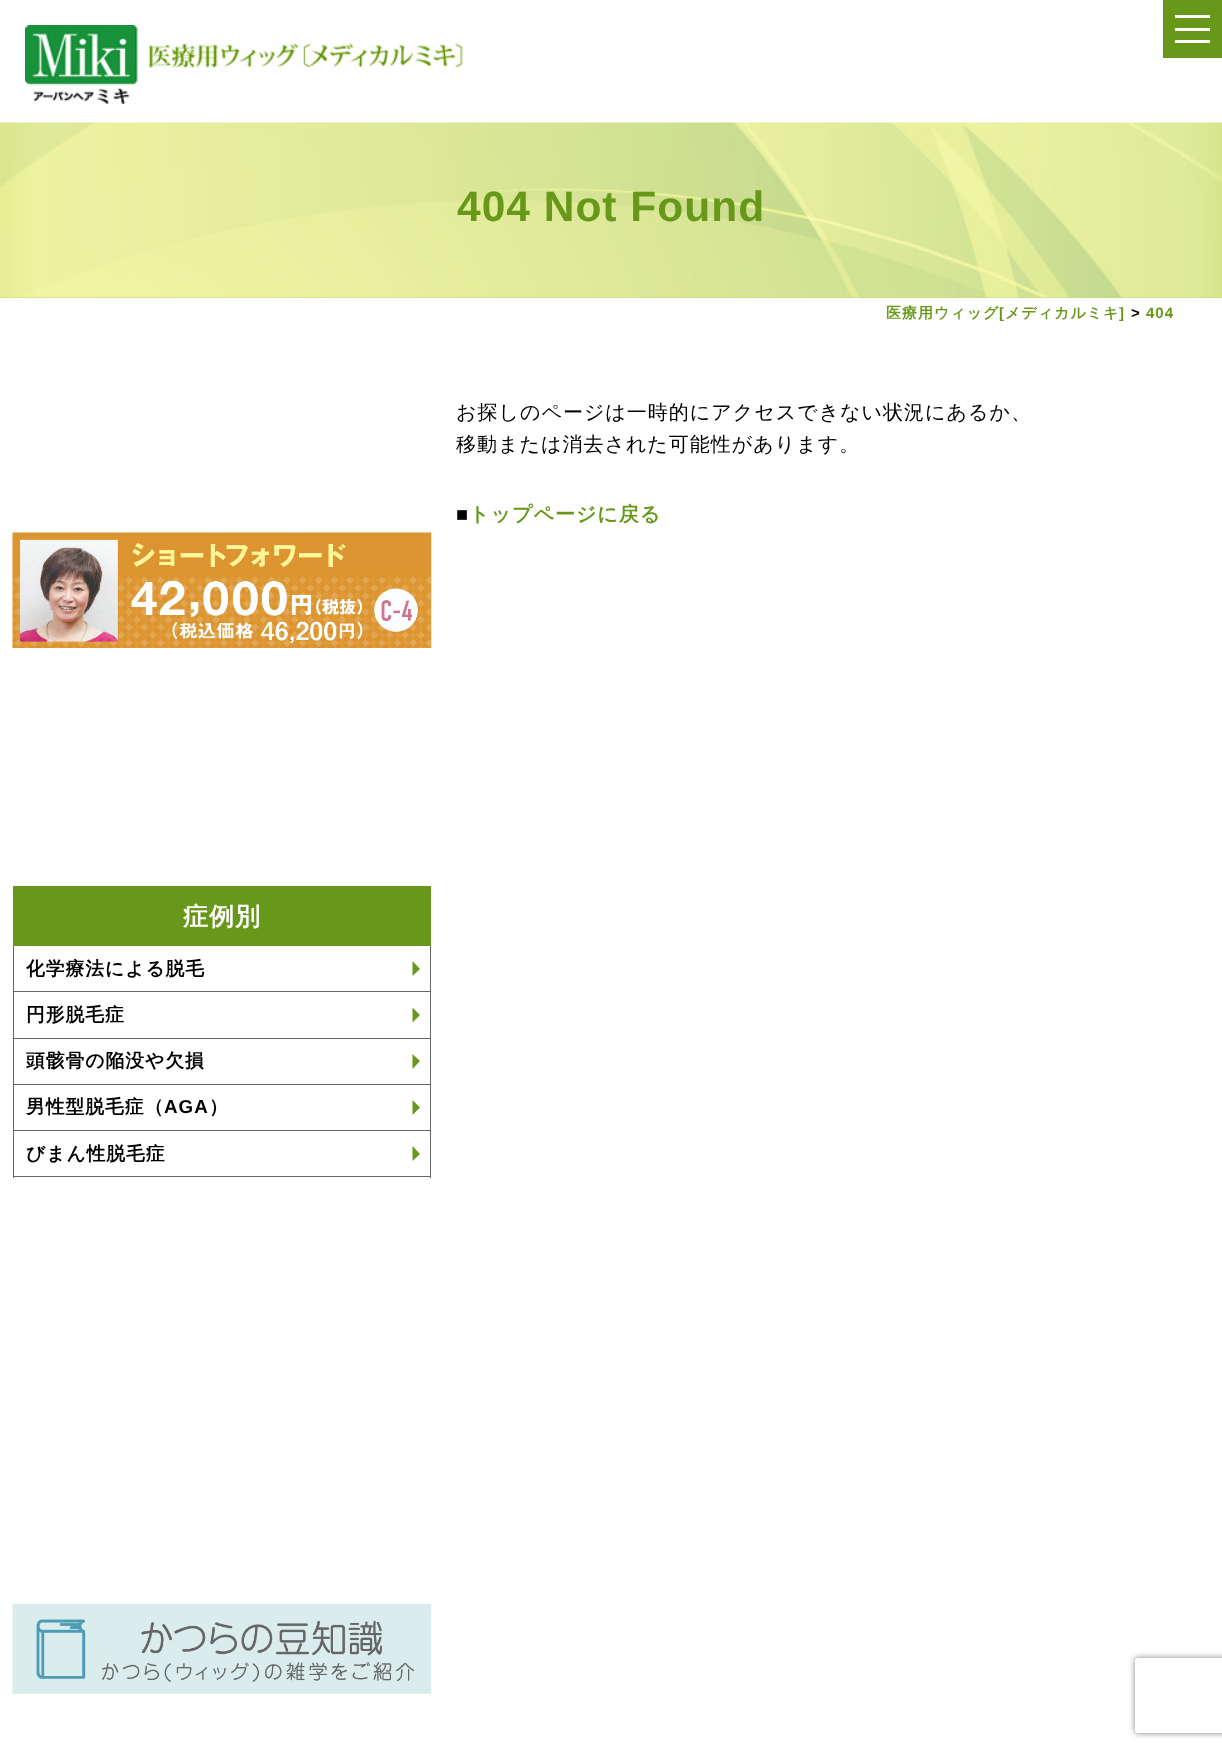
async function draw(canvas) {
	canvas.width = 1222;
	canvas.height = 1749;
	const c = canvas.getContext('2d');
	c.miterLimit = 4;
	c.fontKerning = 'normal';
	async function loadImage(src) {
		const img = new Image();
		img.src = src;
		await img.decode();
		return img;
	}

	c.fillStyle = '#fff';
	c.fillRect(0, 0, 1222, 1749);
	c.drawImage(await loadImage('img1.png'), 25, 25, 438, 79);
	for (const [x, y, w, h, color] of [
		[1163, 0, 59, 58, '#67981a'],
		[1175, 15, 35, 3, '#fff'],
		[1175, 28, 35, 3, '#fff'],
		[1175, 40, 35, 3, '#fff'],
		[0, 297, 1222, 1, '#c2d764'],
	]) {
		c.fillStyle = color;
		c.fillRect(x, y, w, h);
	}
	c.drawImage(await loadImage('img2.png'), 0, 122, 1222, 176);
	c.letterSpacing = '1px';
	c.font = 'bold 42.5px Liberation Sans';
	c.fillStyle = '#67981a';
	c.fillText('404 Not Found', 457, 221);
	c.font = 'bold 15px WenQuanYi Zen Hei';
	c.fillText('医療用ウィッグ', 886, 318);
	c.font = 'bold 15px Liberation Sans';
	c.fillText('[', 999, 318);
	c.font = 'bold 15px WenQuanYi Zen Hei';
	c.fillText('メディカルミキ', 1005, 318);
	c.font = 'bold 15px Liberation Sans';
	c.fillText(']', 1119, 318);
	c.fillStyle = '#000';
	c.fillText('>', 1131, 318);
	c.fillStyle = '#67981a';
	c.fillText('404', 1146, 318);
	c.font = '500 20px WenQuanYi Zen Hei';
	c.fillStyle = '#000';
	c.fillText('お探しのページは一時的にアクセスできない状況にあるか、', 456, 419);
	c.fillText('移動または消去された可能性があります。', 456, 451);
	c.font = '20px Liberation Sans';
	c.fillText('■', 456, 521);
	c.font = 'bold 20px WenQuanYi Zen Hei';
	c.fillStyle = '#67981a';
	c.fillText('トップページに戻る', 469, 521);
	c.drawImage(await loadImage('img3.png'), 12, 532, 420, 116);
	c.fillRect(13, 886, 418, 60);
	c.font = 'bold 25px WenQuanYi Zen Hei';
	c.fillStyle = '#fff';
	c.fillText('症例別', 183, 925);
	for (const [x, y, w, h, color] of [
		[430, 946, 1, 232, '#666'],
		[13, 991, 418, 1, '#666'],
		[13, 946, 1, 47, '#666'],
	]) {
		c.fillStyle = color;
		c.fillRect(x, y, w, h);
	}
	c.font = 'bold 18.75px WenQuanYi Zen Hei';
	c.fillStyle = '#000';
	c.fillText('化学療法による脱毛', 26, 975);
	c.fillStyle = '#67981a';
	c.beginPath();
	c.moveTo(412.5, 976);
	c.lineTo(412.5, 961);
	c.lineTo(420, 969);
	c.closePath();
	c.fill();
	c.fillStyle = '#666';
	c.fillRect(13, 1038, 418, 1);
	c.fillRect(13, 993, 1, 46);
	c.fillStyle = '#000';
	c.fillText('円形脱毛症', 26, 1021);
	c.fillStyle = '#67981a';
	c.beginPath();
	c.moveTo(412.5, 1022.5);
	c.lineTo(412.5, 1007.5);
	c.lineTo(420, 1015);
	c.closePath();
	c.fill();
	c.fillStyle = '#666';
	c.fillRect(13, 1084, 418, 1);
	c.fillRect(13, 1039, 1, 46);
	c.fillStyle = '#000';
	c.fillText('頭骸骨の陥没や欠損', 26, 1067);
	c.fillStyle = '#67981a';
	c.beginPath();
	c.moveTo(412.5, 1069);
	c.lineTo(412.5, 1054);
	c.lineTo(420, 1061);
	c.closePath();
	c.fill();
	c.fillStyle = '#666';
	c.fillRect(13, 1130, 418, 1);
	c.fillRect(13, 1085, 1, 46);
	c.fillStyle = '#000';
	c.fillText('男性型脱毛症（', 26, 1113);
	c.font = 'bold 18.75px Liberation Sans';
	c.fillText('AGA', 164, 1113);
	c.font = 'bold 18.75px WenQuanYi Zen Hei';
	c.fillText('）', 209, 1113);
	c.fillStyle = '#67981a';
	c.beginPath();
	c.moveTo(412.5, 1115);
	c.lineTo(412.5, 1100);
	c.lineTo(420, 1107.5);
	c.closePath();
	c.fill();
	c.fillStyle = '#666';
	c.fillRect(13, 1176, 418, 1);
	c.fillRect(13, 1131, 1, 47);
	c.fillStyle = '#000';
	c.fillText('びまん性脱毛症', 26, 1160);
	c.fillStyle = '#67981a';
	c.beginPath();
	c.moveTo(412.5, 1161);
	c.lineTo(412.5, 1146);
	c.lineTo(420, 1154);
	c.closePath();
	c.fill();
	c.drawImage(await loadImage('img4.png'), 12, 1603, 420, 91);
	c.save();
	c.beginPath();
	c.moveTo(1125, 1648);
	c.lineTo(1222, 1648);
	c.lineTo(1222, 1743);
	c.lineTo(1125, 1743);
	c.closePath();
	c.moveTo(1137.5, 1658);
	c.lineTo(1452.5, 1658);
	c.bezierCurveTo(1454, 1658, 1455, 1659, 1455, 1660.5);
	c.lineTo(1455, 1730.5);
	c.bezierCurveTo(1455, 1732, 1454, 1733, 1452.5, 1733);
	c.lineTo(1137.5, 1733);
	c.bezierCurveTo(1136, 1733, 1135, 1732, 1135, 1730.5);
	c.lineTo(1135, 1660.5);
	c.bezierCurveTo(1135, 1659, 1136, 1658, 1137.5, 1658);
	c.closePath();
	c.clip('evenodd');
	c.fillStyle = '#808080';
	c.filter = 'blur(3px)';
	c.beginPath();
	c.roundRect(1135, 1658, 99, 75, 2.5);
	c.fill();
	c.filter = 'none';
	c.restore();
}

draw(document.querySelector('canvas'));
